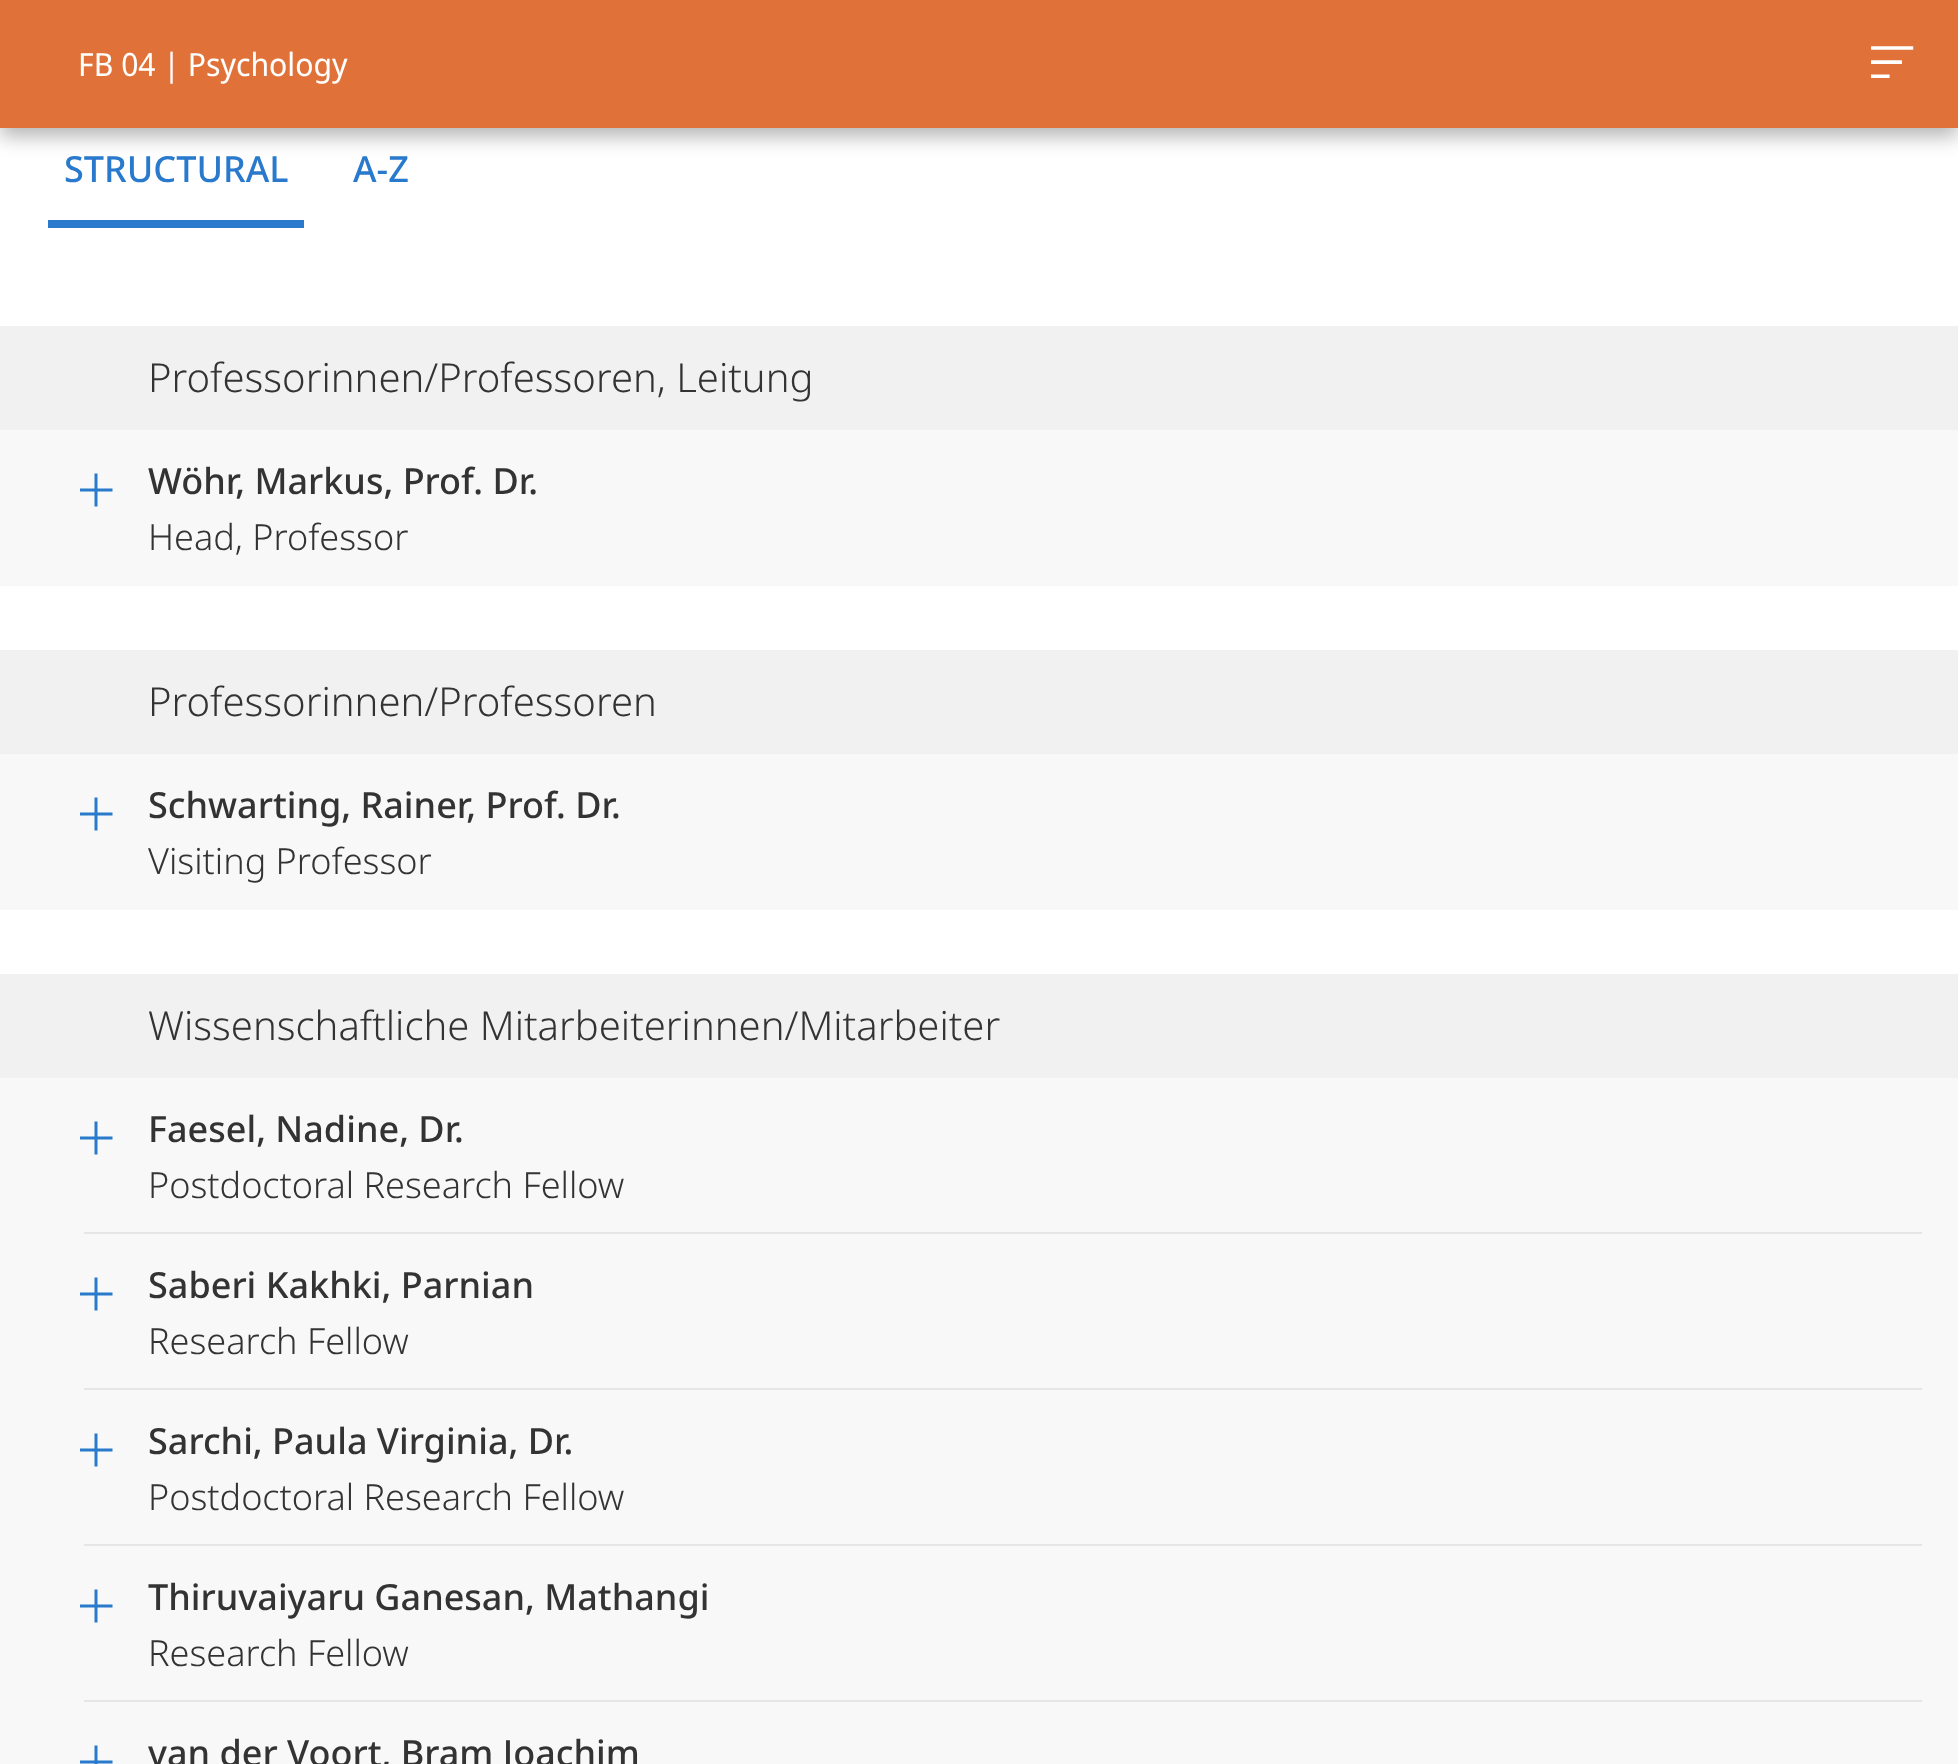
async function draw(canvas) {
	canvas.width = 1958;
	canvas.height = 1764;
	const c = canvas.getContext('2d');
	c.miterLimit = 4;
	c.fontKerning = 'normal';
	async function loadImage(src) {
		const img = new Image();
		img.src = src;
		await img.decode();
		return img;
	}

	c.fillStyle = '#fff';
	c.fillRect(0, 0, 1958, 1764);
	c.fillStyle = '#0000004d';
	c.filter = 'blur(10px)';
	c.beginPath();
	c.rect(0, 8, 1958, 128);
	c.fill();
	c.filter = 'none';
	c.fillStyle = '#e07239';
	c.fillRect(0, 0, 1958, 128);
	c.font = '32px Noto Sans Display';
	c.fillStyle = '#fff';
	c.fillText('FB 04 | Psychology', 78, 76);
	c.drawImage(await loadImage('img1.png'), 1871, 46, 43, 32);
	c.fillStyle = '#297acc';
	c.fillRect(48, 220, 256, 8);
	c.font = '500 36px Noto Sans';
	c.fillText('STRUCTURAL', 64, 182);
	c.fillText('A-Z', 353, 182);
	c.fillStyle = '#f1f1f1';
	c.fillRect(0, 326, 1958, 104);
	c.font = '300 40px Noto Sans';
	c.fillStyle = '#333';
	c.fillText('Professorinnen/Professoren, Leitung', 148, 392);
	c.fillStyle = '#f8f8f8';
	c.fillRect(0, 430, 1958, 156);
	c.drawImage(await loadImage('img2.png'), 80, 473, 33, 34);
	c.font = '500 36px Noto Sans';
	c.fillStyle = '#333';
	c.fillText('Wöhr, Markus, Prof. Dr.', 148, 494);
	c.font = '300 36px Noto Sans';
	c.fillText('Head, Professor', 148, 550);
	c.fillStyle = '#f1f1f1';
	c.fillRect(0, 650, 1958, 104);
	c.font = '300 40px Noto Sans';
	c.fillStyle = '#333';
	c.fillText('Professorinnen/Professoren', 148, 716);
	c.fillStyle = '#f8f8f8';
	c.fillRect(0, 754, 1958, 156);
	c.drawImage(await loadImage('img2.png'), 80, 797, 33, 34);
	c.font = '500 36px Noto Sans';
	c.fillStyle = '#333';
	c.fillText('Schwarting, Rainer, Prof. Dr.', 148, 818);
	c.font = '300 36px Noto Sans';
	c.fillText('Visiting Professor', 148, 874);
	c.fillStyle = '#f1f1f1';
	c.fillRect(0, 974, 1958, 104);
	c.font = '300 40px Noto Sans';
	c.fillStyle = '#333';
	c.fillText('Wissenschaftliche Mitarbeiterinnen/Mitarbeiter', 148, 1040);
	c.fillStyle = '#f8f8f8';
	c.fillRect(0, 1078, 1958, 686);
	c.drawImage(await loadImage('img2.png'), 80, 1121, 33, 34);
	c.font = '500 36px Noto Sans';
	c.fillStyle = '#333';
	c.fillText('Faesel, Nadine, Dr.', 148, 1142);
	c.font = '300 36px Noto Sans';
	c.fillText('Postdoctoral Research Fellow', 148, 1198);
	c.fillStyle = '#e6e6e6';
	c.fillRect(84, 1232, 1838, 2);
	c.drawImage(await loadImage('img2.png'), 80, 1277, 33, 34);
	c.font = '500 36px Noto Sans';
	c.fillStyle = '#333';
	c.fillText('Saberi Kakhki, Parnian', 148, 1298);
	c.font = '300 36px Noto Sans';
	c.fillText('Research Fellow', 148, 1354);
	c.fillStyle = '#e6e6e6';
	c.fillRect(84, 1388, 1838, 2);
	c.drawImage(await loadImage('img2.png'), 80, 1433, 33, 34);
	c.font = '500 36px Noto Sans';
	c.fillStyle = '#333';
	c.fillText('Sarchi, Paula Virginia, Dr.', 148, 1454);
	c.font = '300 36px Noto Sans';
	c.fillText('Postdoctoral Research Fellow', 148, 1510);
	c.fillStyle = '#e6e6e6';
	c.fillRect(84, 1544, 1838, 2);
	c.drawImage(await loadImage('img2.png'), 80, 1589, 33, 34);
	c.font = '500 36px Noto Sans';
	c.fillStyle = '#333';
	c.fillText('Thiruvaiyaru Ganesan, Mathangi', 148, 1610);
	c.font = '300 36px Noto Sans';
	c.fillText('Research Fellow', 148, 1666);
	c.fillStyle = '#e6e6e6';
	c.fillRect(84, 1700, 1838, 2);
	c.drawImage(await loadImage('img3.png'), 80, 1745, 33, 19);
	c.font = '500 36px Noto Sans';
	c.fillStyle = '#333';
	c.fillText('van der Voort, Bram Joachim', 148, 1766);
}

draw(document.querySelector('canvas'));
